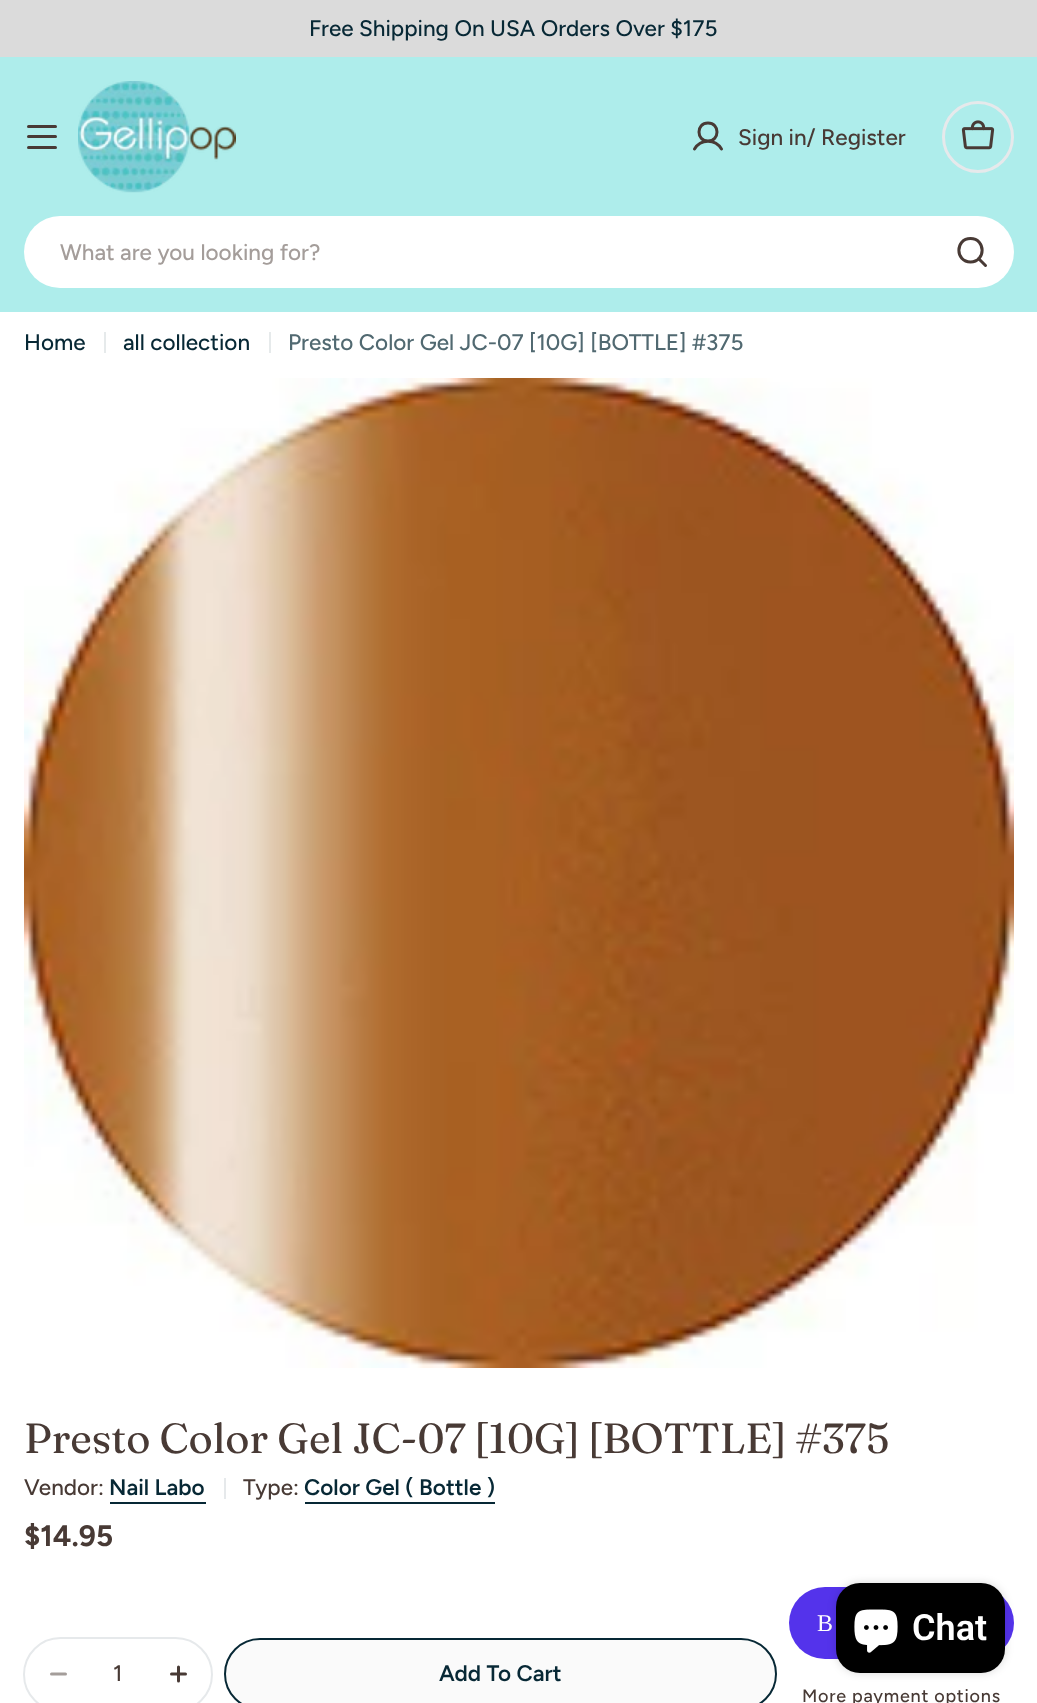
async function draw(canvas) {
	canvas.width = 1037;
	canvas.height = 1703;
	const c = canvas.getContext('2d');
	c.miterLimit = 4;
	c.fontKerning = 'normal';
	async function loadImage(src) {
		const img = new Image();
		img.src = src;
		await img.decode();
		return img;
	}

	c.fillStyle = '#fff';
	c.fillRect(0, 0, 1037, 1703);
	c.fillStyle = '#dbdbdb';
	c.fillRect(0, 0, 1037, 57);
	c.font = '500 22.5px Figtree';
	c.fillStyle = '#072835';
	c.fillText('Free Shipping On USA Orders Over $175', 309, 36);
	c.fillStyle = '#aeedeb';
	c.fillRect(0, 57, 1037, 255);
	c.fillStyle = '#483a35';
	c.beginPath();
	c.roundRect(27, 135, 30, 3, 1.5);
	c.fill();
	c.beginPath();
	c.roundRect(27, 125, 30, 3, 1.5);
	c.fill();
	c.beginPath();
	c.roundRect(27, 146, 30, 3, 1.5);
	c.fill();
	c.drawImage(await loadImage('img1.png'), 78, 81, 158, 112);
	c.beginPath();
	c.moveTo(708, 141);
	c.bezierCurveTo(720, 141, 720, 123, 708, 123);
	c.bezierCurveTo(696, 123, 696, 141, 708, 141);
	c.closePath();
	c.moveTo(694.5, 149);
	c.bezierCurveTo(700.5, 138.5, 715.5, 138.5, 721.5, 149);
	c.strokeStyle = '#483a35';
	c.lineWidth = 3;
	c.lineCap = 'round';
	c.lineJoin = 'round';
	c.stroke();
	c.fillText('Sign in/ Register', 738, 145);
	c.beginPath();
	c.arc(978, 137, 34.5, 0, 2 * Math.PI);
	c.strokeStyle = '#e6e9eb';
	c.stroke();
	c.drawImage(await loadImage('img2.png'), 961, 120, 34, 30);
	c.fillStyle = '#fff';
	c.beginPath();
	c.roundRect(24, 216, 990, 72, 36);
	c.fill();
	c.fillStyle = '#a49d9a';
	c.fillText('What are you looking for?', 60, 260);
	c.beginPath();
	c.moveTo(970.5, 262);
	c.bezierCurveTo(986, 262, 986, 238.5, 970.5, 238.5);
	c.bezierCurveTo(955, 238.5, 955, 262, 970.5, 262);
	c.closePath();
	c.moveTo(978.5, 258.5);
	c.lineTo(985.5, 265.5);
	c.strokeStyle = '#483a35';
	c.stroke();
	c.fillStyle = '#072835';
	c.fillText('Home', 24, 350);
	c.fillStyle = '#e6eaeb';
	c.fillRect(104, 332, 2, 21);
	c.fillStyle = '#072835';
	c.fillText('all collection', 123, 350);
	c.fillStyle = '#e6eaeb';
	c.fillRect(269, 332, 2, 21);
	c.fillStyle = '#516971';
	c.fillText('Presto Color Gel JC-07 [10G] [BOTTLE] #375', 288, 350);
	c.drawImage(await loadImage('img3.png'), 24, 378, 990, 990);
	c.font = '42px Fraunces';
	c.fillStyle = '#483a35';
	c.fillText('Presto Color Gel JC-07 [10G] [BOTTLE] #375', 24, 1453);
	c.font = '500 22.5px Figtree';
	c.fillText('Vendor:', 24, 1495);
	c.font = '600 22.5px Figtree';
	c.fillStyle = '#072835';
	c.fillText('Nail Labo', 109, 1495);
	c.fillRect(110, 1502, 96, 2);
	c.fillStyle = '#e6e9eb';
	c.fillRect(224, 1478, 2, 21);
	c.font = '500 22.5px Figtree';
	c.fillStyle = '#483a35';
	c.fillText('Type:', 243, 1495);
	c.font = '600 22.5px Figtree';
	c.fillStyle = '#072835';
	c.fillText('Color Gel ( Bottle )', 304, 1495);
	c.fillRect(305, 1502, 190, 2);
	c.font = 'bold 29.5px Figtree';
	c.fillStyle = '#483a35';
	c.fillText('$14.95', 24, 1546);
	c.beginPath();
	c.roundRect(24, 1638, 188, 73, 36.5);
	c.strokeStyle = '#e6e9eb';
	c.lineWidth = 2;
	c.lineJoin = 'miter';
	c.stroke();
	c.beginPath();
	c.moveTo(51.5, 1674);
	c.lineTo(65.5, 1674);
	c.strokeStyle = '#a49d9a';
	c.lineWidth = 3;
	c.lineJoin = 'round';
	c.stroke();
	c.font = '500 22.5px Figtree';
	c.fillText('1', 113, 1681);
	c.beginPath();
	c.moveTo(171.5, 1674);
	c.lineTo(185.5, 1674);
	c.moveTo(178.5, 1667);
	c.lineTo(178.5, 1681);
	c.strokeStyle = '#483a35';
	c.stroke();
	c.fillStyle = '#fafafa';
	c.beginPath();
	c.roundRect(225, 1639, 551, 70, 35);
	c.fill();
	c.strokeStyle = '#072835';
	c.lineWidth = 2;
	c.lineJoin = 'miter';
	c.stroke();
	c.font = '600 22.5px Figtree';
	c.fillStyle = '#072835';
	c.fillText('Add To Cart', 439, 1681);
	c.fillStyle = '#5433eb';
	c.beginPath();
	c.roundRect(789, 1587, 225, 72, 36);
	c.fill();
	c.font = '24px Liberation Serif';
	c.fillStyle = '#fff';
	c.fillText('B', 817, 1631);
	c.letterSpacing = '0.75px';
	c.font = '500 18px Figtree';
	c.fillStyle = '#483a35';
	c.fillText('More payment options', 802, 1702);
	c.fillStyle = '#00000026';
	c.filter = 'blur(4px)';
	c.beginPath();
	c.roundRect(836, 1583, 169, 90, 24);
	c.fill();
	c.filter = 'none';
	c.fillStyle = '#000';
	c.beginPath();
	c.roundRect(836, 1583, 169, 90, 24);
	c.fill();
	c.drawImage(await loadImage('img4.png'), 854, 1609, 44, 44);
	c.letterSpacing = '0px';
	c.font = '600 36px Roboto';
	c.fillStyle = '#fff';
	c.fillText('Chat', 912, 1640);
}

draw(document.querySelector('canvas'));
